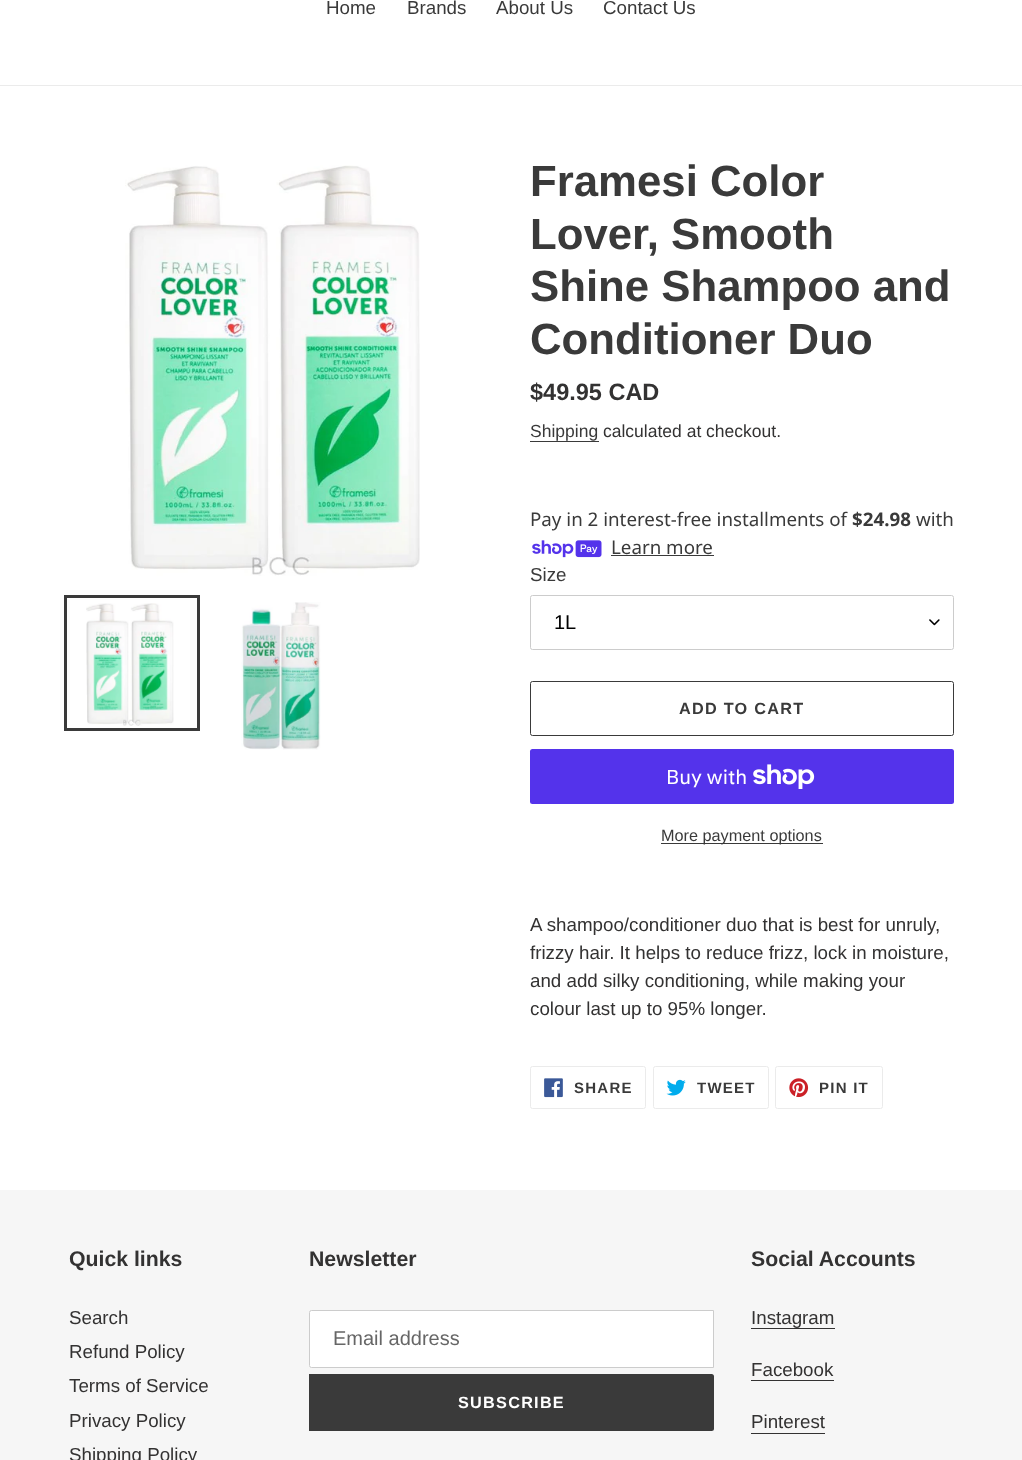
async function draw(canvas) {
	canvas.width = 1022;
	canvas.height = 1460;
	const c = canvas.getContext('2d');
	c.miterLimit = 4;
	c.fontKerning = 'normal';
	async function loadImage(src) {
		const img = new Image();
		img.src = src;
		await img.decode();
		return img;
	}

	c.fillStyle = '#fff';
	c.fillRect(0, 0, 1022, 1460);
	c.fillStyle = '#ebebeb';
	c.fillRect(0, 85, 1022, 1);
	c.font = '18.75px Liberation Sans';
	c.fillStyle = '#3a3a3a';
	for (const [text, x, y] of [
		['Home', 326, 14],
		['Brands', 407, 14],
		['About Us', 496, 14],
		['Contact Us', 603, 14],
	]) {
		c.fillText(text, x, y);
	}
	c.drawImage(await loadImage('img1.png'), 125, 165, 295, 411);
	c.strokeStyle = '#3a3a3a';
	c.lineWidth = 3;
	c.strokeRect(65.5, 596.5, 133, 133);
	c.drawImage(await loadImage('img2.png'), 86, 603, 88, 123);
	c.drawImage(await loadImage('img3.png'), 241, 602, 80, 148);
	c.font = 'bold 43.75px Liberation Sans';
	for (const [text, x, y] of [
		['Framesi Color', 530, 196],
		['Lover, Smooth', 530, 249],
		['Shine Shampoo and', 530, 301],
		['Conditioner Duo', 530, 354],
	]) {
		c.fillText(text, x, y);
	}
	c.font = 'bold 23.5px Liberation Sans';
	c.fillStyle = '#333232';
	c.fillText('$49.95 CAD', 530, 400);
	c.font = '17.5px Liberation Sans';
	c.fillStyle = '#3a3a3a';
	c.fillText('Shipping', 530, 437);
	c.fillRect(530, 441, 69, 1);
	c.fillStyle = '#333232';
	c.fillText('calculated at checkout.', 603, 437);
	c.font = '18.75px Noto Sans';
	c.fillStyle = '#3a3a3a';
	c.fillText('Pay in 2 interest-free installments of', 530, 526);
	c.font = 'bold 18.75px Noto Sans';
	c.fillText('$24.98', 852, 526);
	c.font = '18.75px Noto Sans';
	c.fillText('with', 916, 526);
	c.drawImage(await loadImage('img4.png'), 532, 540, 70, 18);
	c.fillText('Learn more', 611, 554);
	c.fillRect(611, 555, 103, 1);
	c.font = '18.75px Liberation Sans';
	c.fillText('Size', 530, 581);
	c.drawImage(await loadImage('img5.png'), 929, 619, 11, 7);
	c.beginPath();
	c.roundRect(530.5, 595.5, 423, 54, 2);
	c.strokeStyle = '#ccc';
	c.lineWidth = 1;
	c.stroke();
	c.font = '20px Liberation Sans';
	c.fillStyle = '#000';
	c.fillText('1L', 554, 629);
	c.beginPath();
	c.roundRect(530.5, 681.5, 423, 54, 2);
	c.strokeStyle = '#3a3a3a';
	c.stroke();
	c.letterSpacing = '1.25px';
	c.font = 'bold 16.25px Liberation Sans';
	c.fillStyle = '#3a3a3a';
	c.fillText('ADD TO CART', 679, 714);
	c.fillStyle = '#5433eb';
	c.beginPath();
	c.roundRect(530, 749, 424, 55, 2.5);
	c.fill();
	c.letterSpacing = '0px';
	c.font = '20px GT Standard';
	c.fillStyle = '#fff';
	c.fillText('Buy with', 666, 784);
	c.drawImage(await loadImage('img6.png'), 753, 764, 62, 25);
	c.fillStyle = '#3a3a3a';
	c.fillRect(661, 843, 162, 1);
	c.font = '16.25px Liberation Sans';
	c.fillText('More payment options', 661, 841);
	c.font = '18.75px Liberation Sans';
	c.fillStyle = '#333232';
	for (const [text, x, y] of [
		['A shampoo/conditioner duo that is best for unruly,', 530, 931],
		['frizzy hair. It helps to reduce frizz, lock in moisture,', 530, 959],
		['and add silky conditioning, while making your', 530, 987],
		['colour last up to 95% longer.', 530, 1015],
	]) {
		c.fillText(text, x, y);
	}
	c.beginPath();
	c.roundRect(530.5, 1066.5, 115, 42, 2);
	c.strokeStyle = '#ebebeb';
	c.stroke();
	c.drawImage(await loadImage('img7.png'), 544, 1078, 19, 20);
	c.letterSpacing = '1.25px';
	c.font = 'bold 15px Liberation Sans';
	c.fillStyle = '#3a3a3a';
	c.fillText('SHARE', 574, 1093);
	c.beginPath();
	c.roundRect(653.5, 1066.5, 115, 42, 2);
	c.stroke();
	c.drawImage(await loadImage('img8.png'), 666, 1079, 20, 17);
	c.fillText('TWEET', 697, 1093);
	c.beginPath();
	c.roundRect(775.5, 1066.5, 107, 42, 2);
	c.stroke();
	c.drawImage(await loadImage('img9.png'), 789, 1078, 20, 20);
	c.fillText('PIN IT', 819, 1093);
	c.fillStyle = '#f6f6f6';
	c.fillRect(0, 1190, 1022, 270);
	c.letterSpacing = '0px';
	c.font = 'bold 21.25px Liberation Sans';
	c.fillStyle = '#333232';
	c.fillText('Quick links', 69, 1266);
	c.font = '18.75px Liberation Sans';
	for (const [text, x, y] of [
		['Search', 69, 1324],
		['Refund Policy', 69, 1358],
		['Terms of Service', 69, 1392],
		['Privacy Policy', 69, 1427],
		['Shipping Policy', 69, 1461],
	]) {
		c.fillText(text, x, y);
	}
	c.font = 'bold 21.25px Liberation Sans';
	c.fillText('Newsletter', 309, 1266);
	c.fillStyle = '#fff';
	c.beginPath();
	c.roundRect(309.5, 1310.5, 404, 57, [2, 0, 0, 2]);
	c.fill();
	c.strokeStyle = '#ccc';
	c.stroke();
	c.font = '20px Liberation Sans';
	c.fillStyle = '#666';
	c.fillText('Email address', 333, 1345);
	c.fillStyle = '#3a3a3a';
	c.beginPath();
	c.roundRect(309, 1374, 405, 57, [0, 2.5, 2.5, 0]);
	c.fill();
	c.letterSpacing = '1.25px';
	c.font = 'bold 16.25px Liberation Sans';
	c.fillStyle = '#fff';
	c.fillText('SUBSCRIBE', 458, 1408);
	c.letterSpacing = '0px';
	c.font = 'bold 21.25px Liberation Sans';
	c.fillStyle = '#333232';
	c.fillText('Social Accounts', 751, 1266);
	c.font = '18.75px Liberation Sans';
	c.fillText('Instagram', 751, 1324);
	c.fillRect(751, 1328, 84, 1);
	c.fillText('Facebook', 751, 1376);
	c.fillRect(751, 1380, 83, 1);
	c.fillText('Pinterest', 751, 1428);
	c.fillRect(751, 1433, 74, 1);
}

draw(document.querySelector('canvas'));
